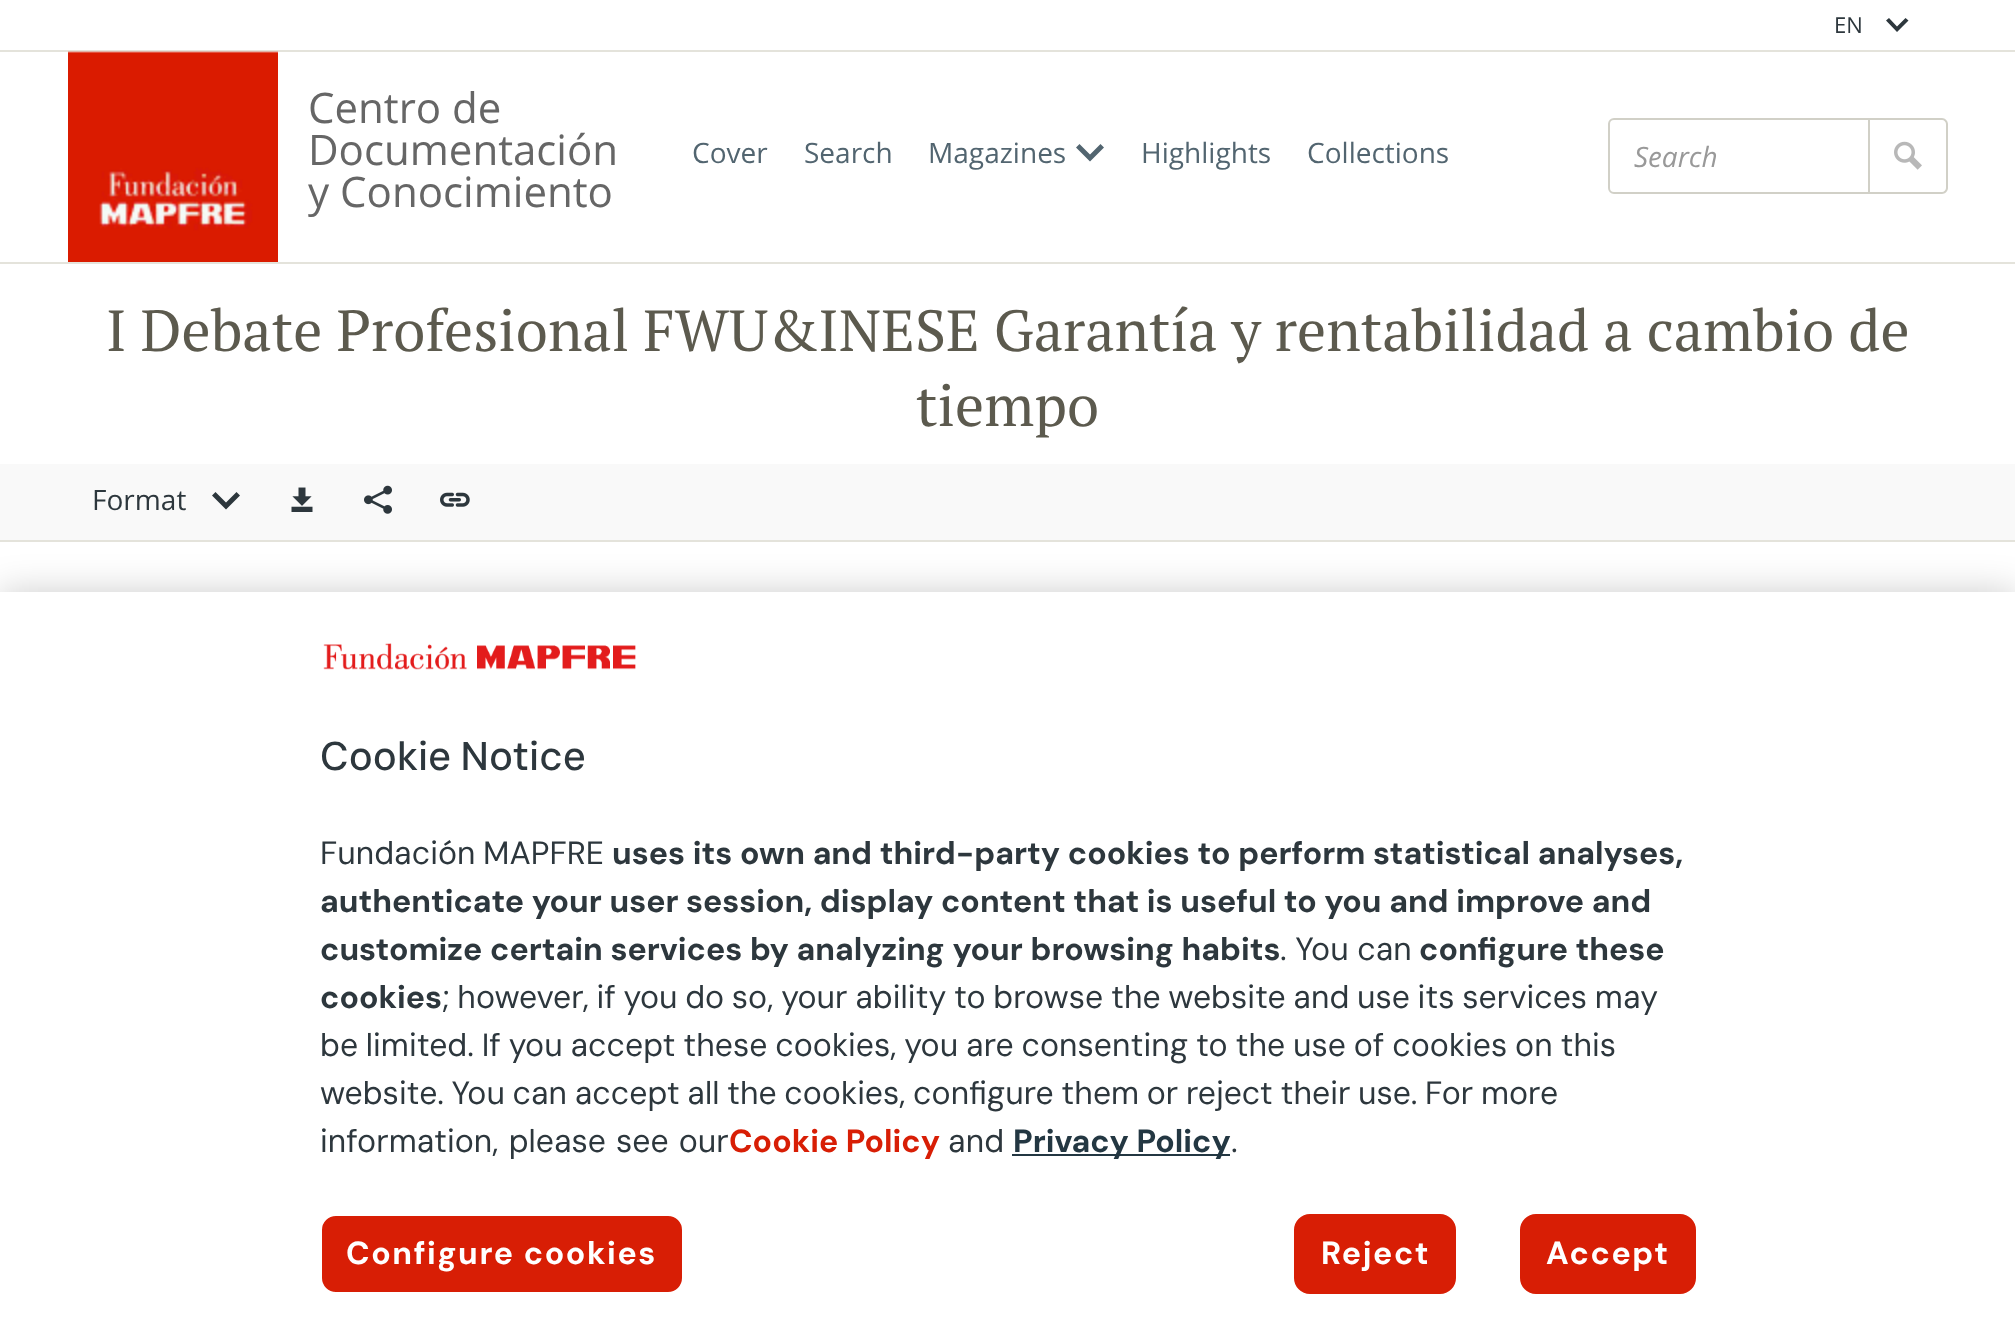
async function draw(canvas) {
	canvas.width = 2015;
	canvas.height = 1341;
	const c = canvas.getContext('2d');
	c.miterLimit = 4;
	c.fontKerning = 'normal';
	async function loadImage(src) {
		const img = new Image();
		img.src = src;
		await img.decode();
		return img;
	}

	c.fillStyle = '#fff';
	c.fillRect(0, 0, 2015, 1341);
	c.font = '22px Open Sans';
	c.fillStyle = '#2d373d';
	c.fillText('EN', 1834, 33);
	c.beginPath();
	c.moveTo(1908.5, 20.5);
	c.lineTo(1905.5, 18);
	c.lineTo(1897, 26.5);
	c.lineTo(1889, 18);
	c.lineTo(1886, 20.5);
	c.lineTo(1897, 32);
	c.closePath();
	c.fill();
	c.fillStyle = '#e4e3db';
	c.fillRect(0, 50, 2015, 2);
	c.fillRect(0, 262, 2015, 2);
	c.drawImage(await loadImage('img1.png'), 68, 51, 210, 211);
	c.font = '42px Open Sans';
	c.fillStyle = '#666';
	for (const [text, x, y] of [
		['Centro de', 308, 123],
		['Documentación', 308, 165],
		['y Conocimiento', 308, 207],
	]) {
		c.fillText(text, x, y);
	}
	c.font = '28px Open Sans';
	c.fillStyle = '#526570';
	for (const [text, x, y] of [
		['Cover', 692, 163],
		['Search', 804, 163],
		['Magazines', 928, 163],
	]) {
		c.fillText(text, x, y);
	}
	c.beginPath();
	c.moveTo(1104, 147.5);
	c.lineTo(1100.5, 144);
	c.lineTo(1090, 154.5);
	c.lineTo(1079.5, 144);
	c.lineTo(1076, 147.5);
	c.lineTo(1090, 161.5);
	c.closePath();
	c.fill();
	c.fillText('Highlights', 1141, 163);
	c.fillText('Collections', 1307, 163);
	c.beginPath();
	c.roundRect(1609, 119, 260, 74, [5, 0, 0, 5]);
	c.strokeStyle = '#d1d0c7';
	c.lineWidth = 2;
	c.stroke();
	c.font = 'italic 28px Open Sans';
	c.fillStyle = '#999';
	c.fillText('Search', 1634, 167);
	c.fillStyle = '#d1d0c7';
	c.beginPath();
	c.moveTo(1870, 118);
	c.lineTo(1942, 118);
	c.bezierCurveTo(1945, 118, 1948, 121, 1948, 124);
	c.lineTo(1948, 188);
	c.bezierCurveTo(1948, 191, 1945, 194, 1942, 194);
	c.lineTo(1870, 194);
	c.closePath();
	c.moveTo(1870, 120);
	c.lineTo(1942, 120);
	c.bezierCurveTo(1944, 120, 1946, 122, 1946, 124);
	c.lineTo(1946, 188);
	c.bezierCurveTo(1946, 190, 1944, 192, 1942, 192);
	c.lineTo(1870, 192);
	c.closePath();
	c.fill('evenodd');
	c.drawImage(await loadImage('img2.png'), 1894, 141, 28, 29);
	c.font = '58px PT Serif';
	c.fillStyle = '#5c5a4e';
	c.fillText('I Debate Profesional FWU&INESE Garantía y rentabilidad a cambio de', 106, 351);
	c.fillText('tiempo', 916, 426);
	c.fillStyle = '#f9f9f9';
	c.fillRect(0, 464, 2015, 76);
	c.fillStyle = '#e4e3db';
	c.fillRect(0, 540, 2015, 2);
	c.font = '28px Open Sans';
	c.fillStyle = '#2d373d';
	c.fillText('Format', 92, 510);
	c.beginPath();
	c.moveTo(240, 495.5);
	c.lineTo(236.5, 492);
	c.lineTo(226, 502.5);
	c.lineTo(215.5, 492);
	c.lineTo(212, 495.5);
	c.lineTo(226, 509.5);
	c.closePath();
	c.fill();
	c.drawImage(await loadImage('img3.png'), 291, 487, 22, 25);
	c.drawImage(await loadImage('img4.png'), 364, 485, 28, 29);
	c.drawImage(await loadImage('img5.png'), 440, 492, 30, 15);
	c.fillStyle = '#00000033';
	c.filter = 'blur(18px)';
	c.beginPath();
	c.rect(0, 592, 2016, 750);
	c.fill();
	c.filter = 'none';
	c.fillStyle = '#fff';
	c.fillRect(0, 592, 2015, 749);
	c.drawImage(await loadImage('img6.png'), 323, 643, 313, 27);
	c.wordSpacing = '-1px';
	c.font = '500 40px DM Sans';
	c.fillStyle = '#2d373d';
	c.fillText('Cookie Notice', 320, 770);
	c.font = '32px DM Sans';
	c.fillText('Fundación MAPFRE', 320, 864);
	c.wordSpacing = '0.25px';
	c.font = 'bold 32px DM Sans';
	c.fillText('uses its own and third-party cookies to perform statistical analyses,', 612, 864);
	c.wordSpacing = '0.1px';
	c.fillText('authenticate your user session, display content that is useful to you and improve and', 320, 912);
	c.wordSpacing = '0.25px';
	c.fillText('customize certain services by analyzing your browsing habits', 320, 960);
	c.wordSpacing = '0px';
	c.font = '32px DM Sans';
	c.fillText('. You can', 1280, 960);
	c.font = 'bold 32px DM Sans';
	c.fillText('configure these', 1419, 960);
	c.fillText('cookies', 320, 1008);
	c.wordSpacing = '-0.9px';
	c.font = '32px DM Sans';
	c.fillText('; however, if you do so, your ability to browse the website and use its services may', 442, 1008);
	c.wordSpacing = '-0.75px';
	c.fillText('be limited. If you accept these cookies, you are consenting to the use of cookies on this', 320, 1056);
	c.wordSpacing = '-1px';
	c.fillText('website. You can accept all the cookies, configure them or reject their use. For more', 320, 1104);
	c.wordSpacing = '1.5px';
	c.fillText('information, please see our', 320, 1152);
	c.wordSpacing = '0px';
	c.font = 'bold 32px DM Sans';
	c.fillStyle = '#d81e05';
	c.fillText('Cookie Policy', 729, 1152);
	c.font = '32px DM Sans';
	c.fillStyle = '#2d373d';
	c.fillText('and', 948, 1152);
	c.fillStyle = '#233742';
	c.fillRect(1012, 1154, 218, 2);
	c.font = 'bold 32px DM Sans';
	c.fillText('Privacy Policy', 1013, 1152);
	c.font = '32px DM Sans';
	c.fillStyle = '#2d373d';
	c.fillText('.', 1231, 1152);
	c.fillStyle = '#d81e05';
	c.beginPath();
	c.roundRect(321, 1215, 362, 78, 15);
	c.fill();
	c.strokeStyle = '#fff';
	c.stroke();
	c.letterSpacing = '1.6px';
	c.font = 'bold 32px DM Sans';
	c.fillStyle = '#fff';
	c.fillText('Configure cookies', 346, 1264);
	c.fillStyle = '#d81e05';
	c.beginPath();
	c.roundRect(1295, 1215, 160, 78, 15);
	c.fill();
	c.strokeStyle = '#d81e05';
	c.stroke();
	c.fillStyle = '#fff';
	c.fillText('Reject', 1321, 1264);
	c.fillStyle = '#d81e05';
	c.beginPath();
	c.roundRect(1521, 1215, 174, 78, 15);
	c.fill();
	c.stroke();
	c.fillStyle = '#fff';
	c.fillText('Accept', 1546, 1264);
}

draw(document.querySelector('canvas'));
